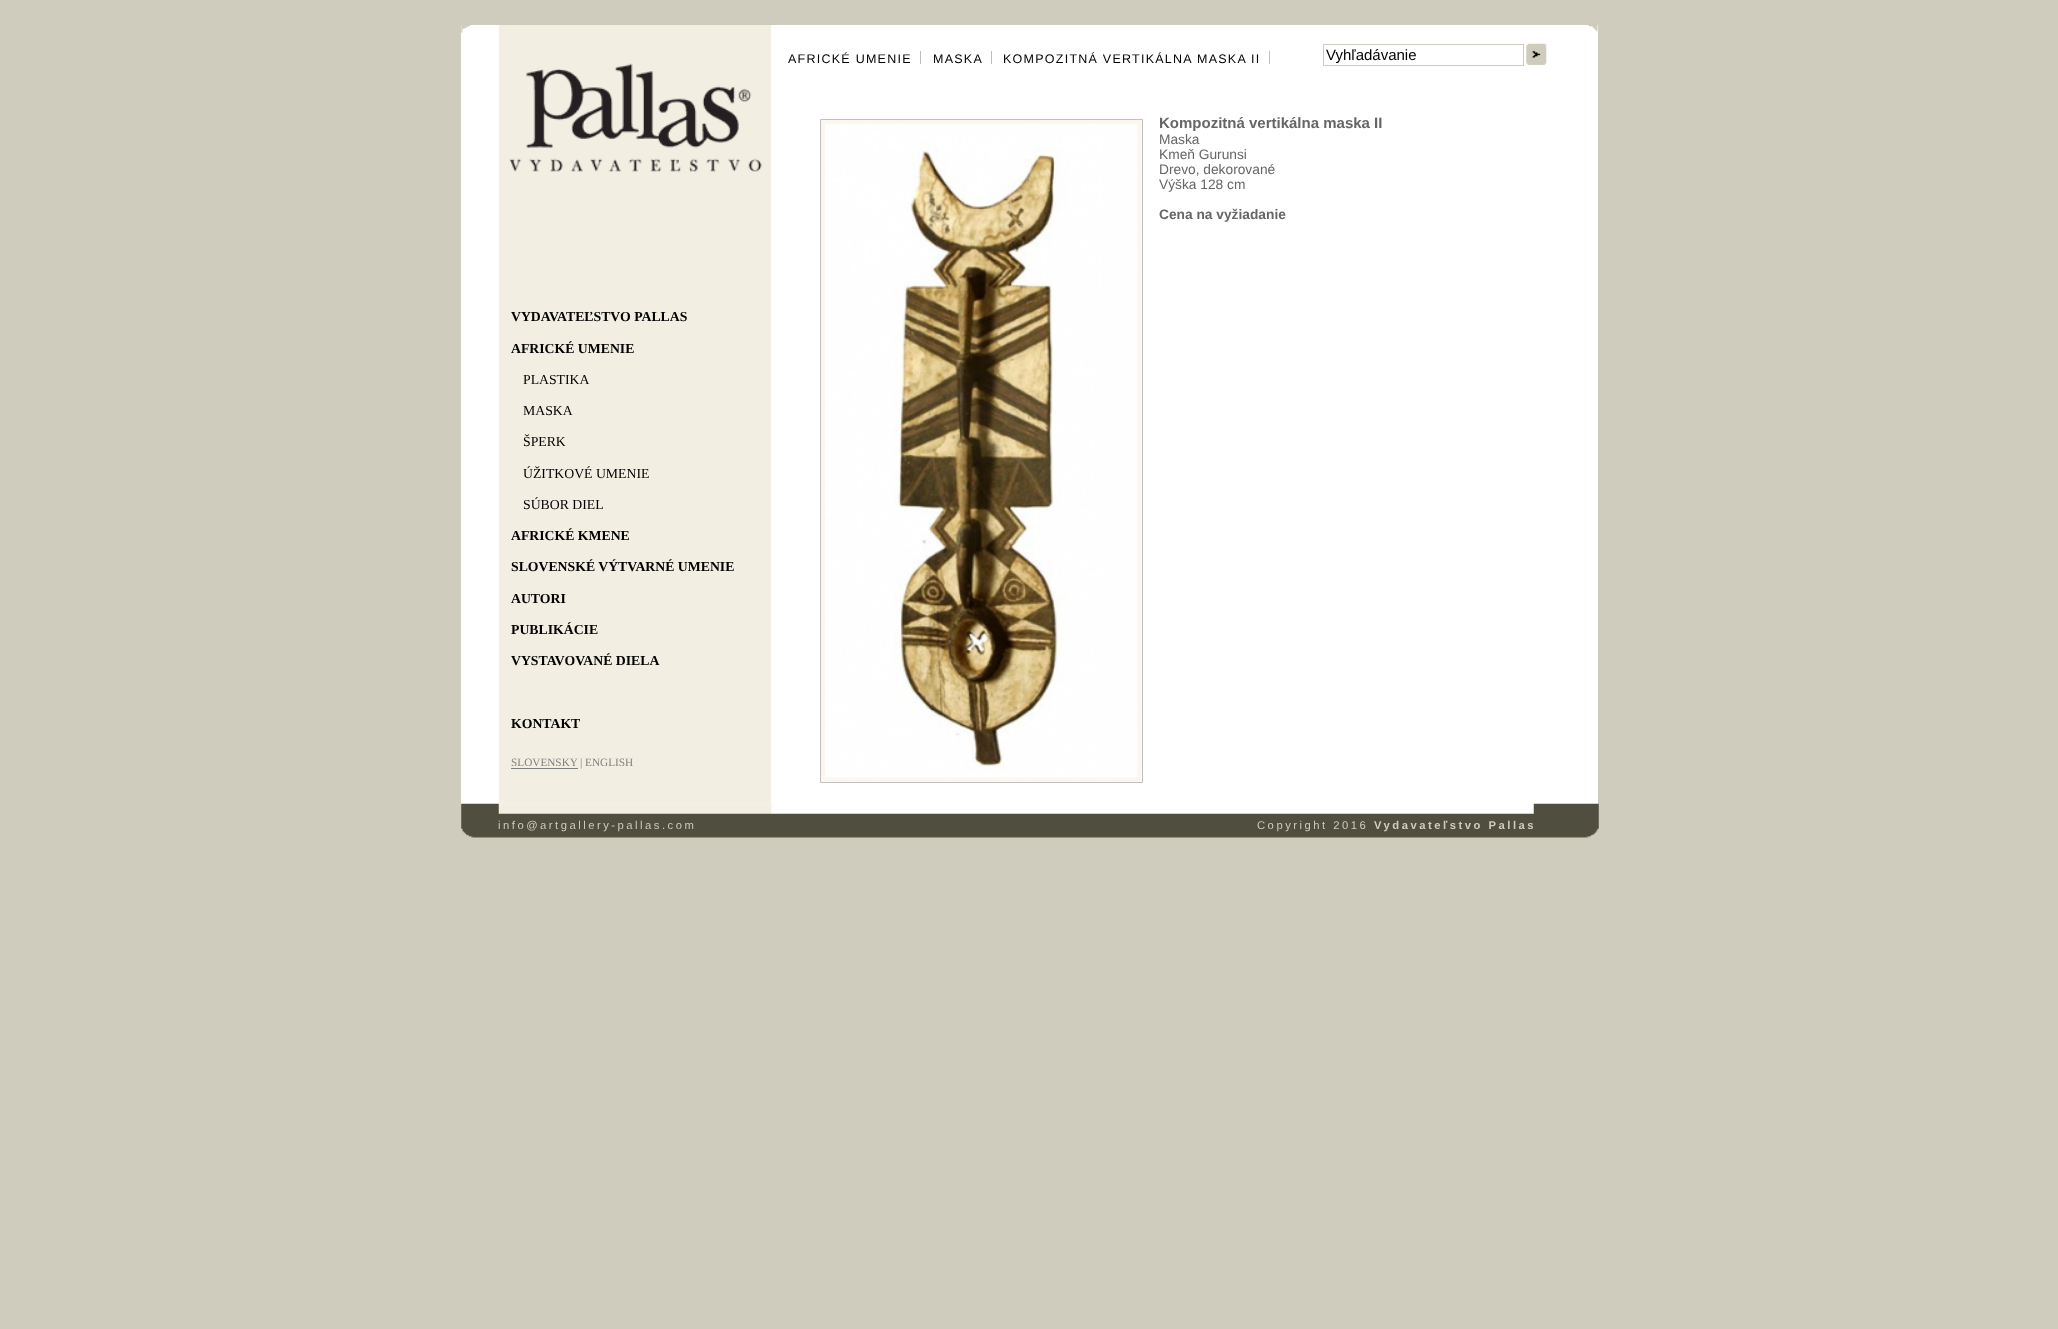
async function draw(canvas) {
	canvas.width = 2058;
	canvas.height = 1329;
	const c = canvas.getContext('2d');
	c.miterLimit = 4;
	c.fontKerning = 'normal';
	async function loadImage(src) {
		const img = new Image();
		img.src = src;
		await img.decode();
		return img;
	}

	c.fillStyle = '#cfcbbd';
	c.fillRect(0, 0, 2058, 1329);
	c.fillStyle = '#fff';
	c.fillRect(461, 25, 1137, 779);
	c.drawImage(await loadImage('img1.png'), 461, 25, 10, 8);
	c.drawImage(await loadImage('img2.png'), 1588, 25, 10, 7);
	c.drawImage(await loadImage('img3.png'), 498, 25, 273, 779);
	c.letterSpacing = '1.25px';
	c.font = '12.5px Liberation Sans';
	c.fillStyle = '#000';
	c.fillText('AFRICKÉ UMENIE', 788, 63);
	c.fillStyle = '#c0c0c0';
	c.fillRect(920, 51, 1, 13);
	c.fillStyle = '#000';
	c.fillText('MASKA', 933, 63);
	c.fillStyle = '#c0c0c0';
	c.fillRect(991, 51, 1, 13);
	c.fillStyle = '#000';
	c.fillText('KOMPOZITNÁ VERTIKÁLNA MASKA II', 1003, 63);
	c.fillStyle = '#c0c0c0';
	c.fillRect(1269, 51, 1, 13);
	c.strokeStyle = '#cfcbbd';
	c.strokeRect(1323.5, 44.5, 200, 21);
	c.letterSpacing = '0px';
	c.font = '15px Liberation Sans';
	c.fillStyle = '#000';
	c.fillText('Vyhľadávanie', 1326, 60);
	c.drawImage(await loadImage('img4.png'), 1526, 43, 21, 22);
	c.fillStyle = '#fbf7ef';
	c.beginPath();
	c.rect(820.5, 119.5, 322, 663);
	c.fill();
	c.strokeStyle = '#c0c0c0';
	c.stroke();
	c.drawImage(await loadImage('img5.png'), 825, 123, 313, 655);
	c.font = 'bold 15px Liberation Sans';
	c.fillStyle = '#666';
	c.fillText('Kompozitná vertikálna maska II', 1159, 128);
	c.font = '13.75px Liberation Sans';
	for (const [text, x, y] of [
		['Maska', 1159, 144],
		['Kmeň Gurunsi', 1159, 159],
		['Drevo, dekorované', 1159, 174],
		['Výška 128 cm', 1159, 189],
	]) {
		c.fillText(text, x, y);
	}
	c.font = 'bold 13.75px Liberation Sans';
	c.fillText('Cena na vyžiadanie', 1159, 219);
	c.drawImage(await loadImage('img6.png'), 509, 63, 253, 109);
	c.font = 'bold 13.75px Liberation Serif';
	c.fillStyle = '#000';
	c.fillText('VYDAVATEĽSTVO PALLAS', 511, 321);
	c.fillText('AFRICKÉ UMENIE', 511, 353);
	c.font = '13.75px Liberation Serif';
	for (const [text, x, y] of [
		['PLASTIKA', 523, 384],
		['MASKA', 523, 415],
		['ŠPERK', 523, 446],
		['ÚŽITKOVÉ UMENIE', 523, 478],
		['SÚBOR DIEL', 523, 509],
	]) {
		c.fillText(text, x, y);
	}
	c.font = 'bold 13.75px Liberation Serif';
	for (const [text, x, y] of [
		['AFRICKÉ KMENE', 511, 540],
		['SLOVENSKÉ VÝTVARNÉ UMENIE', 511, 571],
		['AUTORI', 511, 603],
		['PUBLIKÁCIE', 511, 634],
		['VYSTAVOVANÉ DIELA', 511, 665],
		['KONTAKT', 511, 728],
	]) {
		c.fillText(text, x, y);
	}
	c.font = '11.25px Liberation Serif';
	c.fillStyle = '#808080';
	c.fillText('SLOVENSKY', 511, 766);
	c.fillRect(511, 768, 67, 1);
	c.fillText('| ENGLISH', 580, 766);
	c.drawImage(await loadImage('img7.png'), 461, 803, 1138, 35);
	c.letterSpacing = '2.5px';
	c.font = '11.25px Liberation Sans';
	c.fillStyle = '#cfcbbd';
	c.fillText('info@artgallery-pallas.com', 498, 829);
	c.fillText('Copyright 2016', 1257, 829);
	c.font = 'bold 11.25px Liberation Sans';
	c.fillText('Vydavateľstvo Pallas', 1374, 829);
}

draw(document.querySelector('canvas'));
